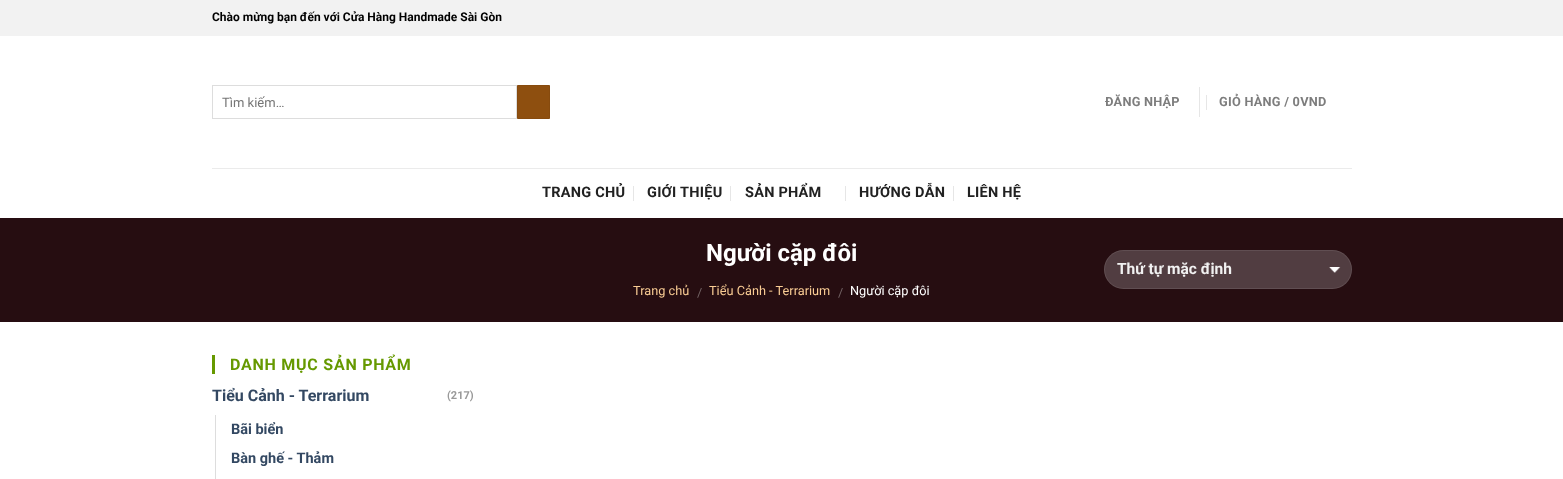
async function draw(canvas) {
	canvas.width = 1563;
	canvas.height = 479;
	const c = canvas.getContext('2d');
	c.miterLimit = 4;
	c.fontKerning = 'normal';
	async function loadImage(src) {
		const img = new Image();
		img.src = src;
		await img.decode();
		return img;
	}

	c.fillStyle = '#fff';
	c.fillRect(0, 0, 1563, 479);
	c.fillStyle = '#f2f2f2';
	c.fillRect(0, 0, 1563, 36);
	c.font = 'bold 12px Roboto';
	c.fillStyle = '#000';
	c.fillText('Chào mừng bạn đến với Cửa Hàng Handmade Sài Gòn', 212, 21);
	c.strokeStyle = '#ddd';
	c.strokeRect(212.5, 85.5, 304, 33);
	c.font = '13px Roboto';
	c.fillStyle = '#757575';
	c.fillText('Tìm kiếm…', 222, 107);
	c.fillStyle = '#8e4f0f';
	c.beginPath();
	c.rect(517.5, 85.5, 32, 33);
	c.fill();
	c.strokeStyle = '#874b0e';
	c.stroke();
	c.letterSpacing = '0.25px';
	c.font = 'bold 12.75px Roboto';
	c.fillStyle = '#7d7d7d';
	c.fillText('ĐĂNG NHẬP', 1105, 106);
	c.fillStyle = '#e6e6e6';
	c.fillRect(1199, 87, 1, 30);
	c.fillRect(1206, 95, 1, 15);
	c.fillStyle = '#7d7d7d';
	c.fillText('GIỎ HÀNG / 0VND', 1219, 106);
	c.fillStyle = '#ebebeb';
	c.fillRect(212, 168, 1140, 1);
	c.font = 'bold 14.5px Roboto';
	c.fillStyle = '#212121';
	c.fillText('TRANG CHỦ', 542, 197);
	c.fillStyle = '#e6e6e6';
	c.fillRect(633, 186, 1, 15);
	c.fillStyle = '#212121';
	c.fillText('GIỚI THIỆU', 647, 197);
	c.fillStyle = '#e6e6e6';
	c.fillRect(730, 186, 1, 15);
	c.fillStyle = '#212121';
	c.fillText('SẢN PHẨM', 745, 197);
	c.fillStyle = '#e6e6e6';
	c.fillRect(845, 186, 1, 15);
	c.fillStyle = '#212121';
	c.fillText('HƯỚNG DẪN', 859, 197);
	c.fillStyle = '#e6e6e6';
	c.fillRect(953, 186, 1, 15);
	c.fillStyle = '#212121';
	c.fillText('LIÊN HỆ', 967, 197);
	c.fillStyle = '#260d11';
	c.fillRect(0, 218, 1563, 104);
	c.letterSpacing = '0px';
	c.font = 'bold 24px Roboto';
	c.fillStyle = '#fff';
	c.fillText('Người cặp đôi', 706, 261);
	c.font = '12.75px Roboto';
	c.fillStyle = '#f9cc94';
	c.fillText('Trang chủ', 633, 295);
	c.fillStyle = '#726264';
	c.fillText('/', 697, 297);
	c.fillStyle = '#f9cc94';
	c.fillText('Tiểu Cảnh - Terrarium', 709, 295);
	c.fillStyle = '#726264';
	c.fillText('/', 838, 297);
	c.fillStyle = '#fff';
	c.fillText('Người cặp đôi', 850, 295);
	c.fillStyle = '#513d41';
	c.beginPath();
	c.roundRect(1104, 250, 248, 39, 19.5);
	c.fill();
	c.drawImage(await loadImage('img1.png'), 1329, 267, 12, 6);
	c.beginPath();
	c.roundRect(1104.5, 250.5, 247, 38, 19);
	c.strokeStyle = '#ffffff17';
	c.stroke();
	c.font = 'bold 15.5px Roboto';
	c.fillStyle = '#f1f1f1';
	c.fillText('Thứ tự mặc định', 1117, 274);
	c.letterSpacing = '0.75px';
	c.font = 'bold 16px Roboto';
	c.fillStyle = '#690';
	c.fillText('DANH MỤC SẢN PHẨM', 230, 370);
	c.fillRect(212, 355, 3, 19);
	c.letterSpacing = '0px';
	c.fillStyle = '#334862';
	c.fillText('Tiểu Cảnh - Terrarium', 212, 401);
	c.font = 'bold 11px Roboto';
	c.fillStyle = '#999';
	c.fillText('(217)', 447, 399);
	c.fillStyle = '#ddd';
	c.fillRect(215, 415, 1, 64);
	c.font = 'bold 14.5px Roboto';
	c.fillStyle = '#334862';
	c.fillText('Bãi biển', 231, 434);
	c.fillText('Bàn ghế - Thảm', 231, 463);
}

draw(document.querySelector('canvas'));
